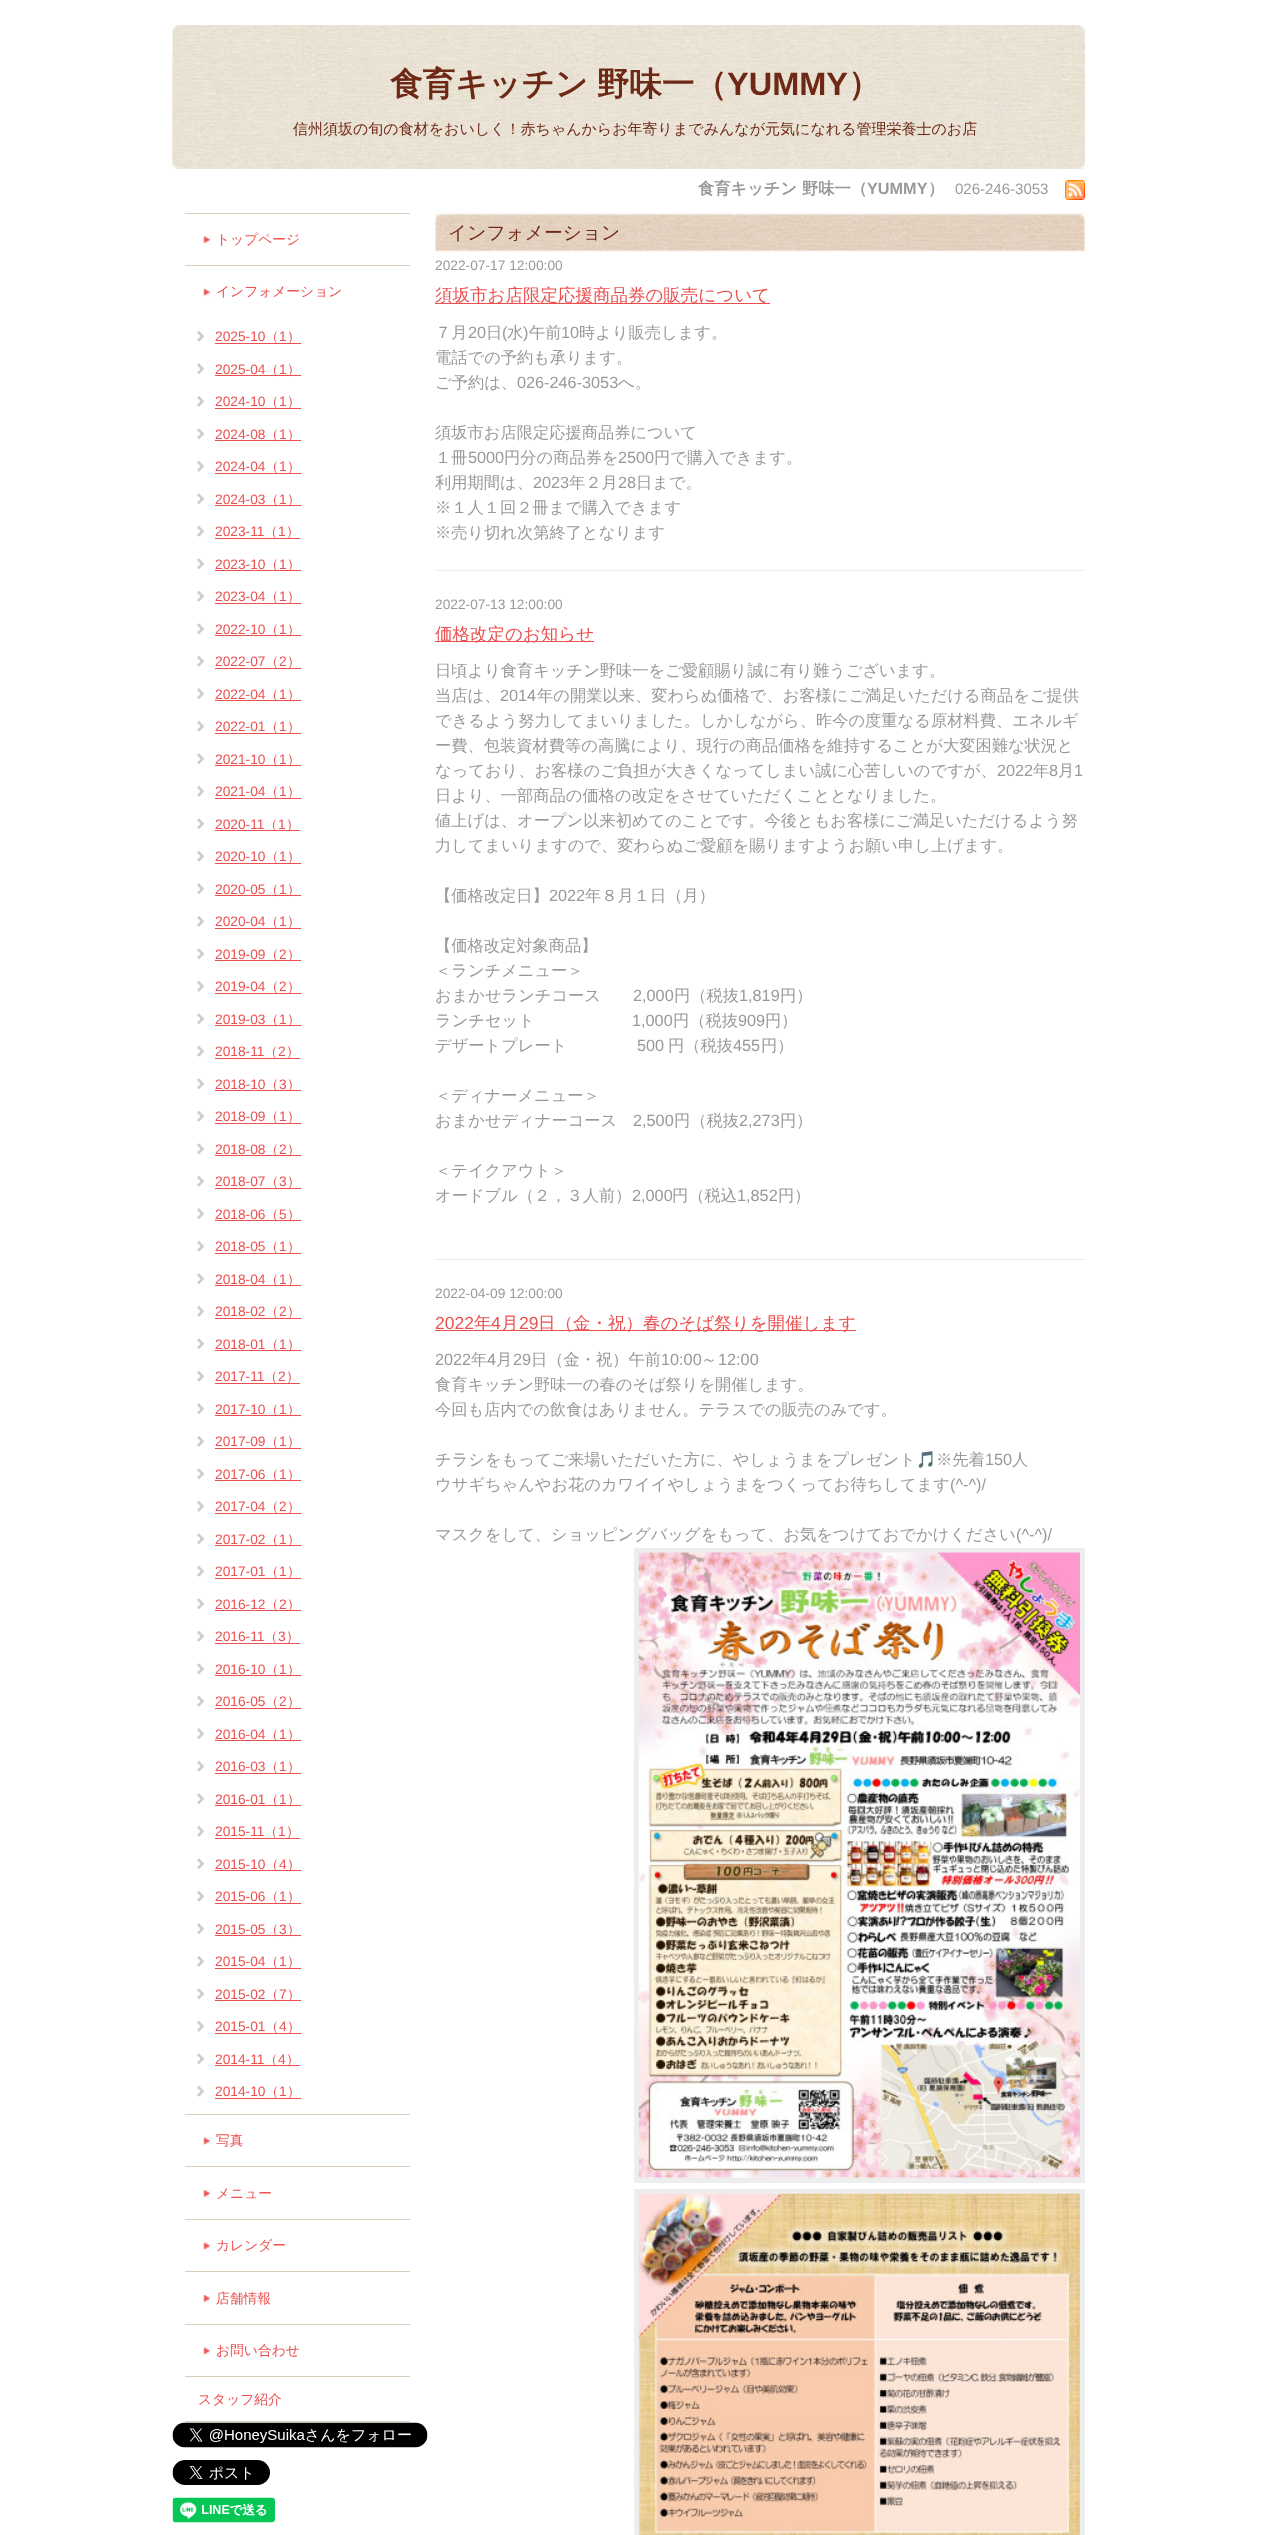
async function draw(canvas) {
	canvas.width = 1270;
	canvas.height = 2535;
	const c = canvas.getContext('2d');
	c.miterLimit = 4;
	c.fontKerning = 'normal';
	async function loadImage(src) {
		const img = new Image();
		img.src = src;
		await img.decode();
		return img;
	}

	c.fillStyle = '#fff';
	c.fillRect(0, 0, 1270, 2535);
	c.drawImage(await loadImage('img1.png'), 172, 25, 913, 144);
	c.drawImage(await loadImage('img2.png'), 172, 62, 913, 107);
	c.wordSpacing = '-1px';
	c.font = 'bold 32.5px WenQuanYi Zen Hei';
	c.fillStyle = '#6d2916';
	c.fillText('食育キッチン 野味一（', 390, 95);
	c.wordSpacing = '0px';
	c.font = 'bold 32.5px Liberation Sans';
	c.fillText('YUMMY', 727, 95);
	c.font = 'bold 32.5px WenQuanYi Zen Hei';
	c.fillText('）', 848, 95);
	c.font = '500 15px WenQuanYi Zen Hei';
	c.fillText('信州須坂の旬の食材をおいしく！赤ちゃんからお年寄りまでみんなが元気になれる管理栄養士のお店', 293, 134);
	c.font = 'bold 16.25px WenQuanYi Zen Hei';
	c.fillStyle = '#999';
	c.fillText('食育キッチン 野味一（', 698, 194);
	c.font = 'bold 16.25px Liberation Sans';
	c.fillText('YUMMY', 867, 194);
	c.font = 'bold 16.25px WenQuanYi Zen Hei';
	c.fillText('）', 928, 194);
	c.font = '15px Liberation Sans';
	c.fillText('026-246-3053', 955, 194);
	c.drawImage(await loadImage('img3.png'), 1065, 180, 20, 20);
	c.fillStyle = '#dacdb9';
	c.fillRect(185, 213, 225, 1);
	c.fillRect(185, 265, 225, 1);
	c.drawImage(await loadImage('img4.png'), 203, 236, 9, 8);
	c.font = '500 13.75px WenQuanYi Zen Hei';
	c.fillStyle = '#eb5050';
	c.fillText('トップページ', 216, 244);
	c.fillStyle = '#dacdb9';
	c.fillRect(185, 2114, 225, 1);
	c.drawImage(await loadImage('img5.png'), 203, 288, 9, 9);
	c.fillStyle = '#eb5050';
	c.fillText('インフォメーション', 216, 296);
	c.drawImage(await loadImage('img6.png'), 197, 331, 7, 11);
	c.font = '13.75px Liberation Sans';
	c.fillText('2025-10', 215, 341);
	c.fillRect(215, 343, 86, 1);
	c.font = '500 13.75px WenQuanYi Zen Hei';
	c.fillText('（', 265, 341);
	c.font = '13.75px Liberation Sans';
	c.fillText('1', 279, 341);
	c.font = '500 13.75px WenQuanYi Zen Hei';
	c.fillText('）', 287, 341);
	c.drawImage(await loadImage('img7.png'), 197, 363, 7, 11);
	c.font = '13.75px Liberation Sans';
	c.fillText('2025-04', 215, 374);
	c.fillRect(215, 375, 86, 1);
	c.font = '500 13.75px WenQuanYi Zen Hei';
	c.fillText('（', 265, 374);
	c.font = '13.75px Liberation Sans';
	c.fillText('1', 279, 374);
	c.font = '500 13.75px WenQuanYi Zen Hei';
	c.fillText('）', 287, 374);
	c.drawImage(await loadImage('img6.png'), 197, 396, 7, 11);
	c.font = '13.75px Liberation Sans';
	c.fillText('2024-10', 215, 406);
	c.fillRect(215, 408, 86, 1);
	c.font = '500 13.75px WenQuanYi Zen Hei';
	c.fillText('（', 265, 406);
	c.font = '13.75px Liberation Sans';
	c.fillText('1', 279, 406);
	c.font = '500 13.75px WenQuanYi Zen Hei';
	c.fillText('）', 287, 406);
	c.drawImage(await loadImage('img7.png'), 197, 428, 7, 11);
	c.font = '13.75px Liberation Sans';
	c.fillText('2024-08', 215, 439);
	c.fillRect(215, 440, 86, 1);
	c.font = '500 13.75px WenQuanYi Zen Hei';
	c.fillText('（', 265, 439);
	c.font = '13.75px Liberation Sans';
	c.fillText('1', 279, 439);
	c.font = '500 13.75px WenQuanYi Zen Hei';
	c.fillText('）', 287, 439);
	c.drawImage(await loadImage('img6.png'), 197, 461, 7, 11);
	c.font = '13.75px Liberation Sans';
	c.fillText('2024-04', 215, 471);
	c.fillRect(215, 473, 86, 1);
	c.font = '500 13.75px WenQuanYi Zen Hei';
	c.fillText('（', 265, 471);
	c.font = '13.75px Liberation Sans';
	c.fillText('1', 279, 471);
	c.font = '500 13.75px WenQuanYi Zen Hei';
	c.fillText('）', 287, 471);
	c.drawImage(await loadImage('img7.png'), 197, 493, 7, 11);
	c.font = '13.75px Liberation Sans';
	c.fillText('2024-03', 215, 504);
	c.fillRect(215, 505, 86, 1);
	c.font = '500 13.75px WenQuanYi Zen Hei';
	c.fillText('（', 265, 504);
	c.font = '13.75px Liberation Sans';
	c.fillText('1', 279, 504);
	c.font = '500 13.75px WenQuanYi Zen Hei';
	c.fillText('）', 287, 504);
	c.drawImage(await loadImage('img6.png'), 197, 526, 7, 11);
	c.font = '13.75px Liberation Sans';
	c.fillText('2023-11', 215, 536);
	c.fillRect(215, 538, 85, 1);
	c.font = '500 13.75px WenQuanYi Zen Hei';
	c.fillText('（', 264, 536);
	c.font = '13.75px Liberation Sans';
	c.fillText('1', 278, 536);
	c.font = '500 13.75px WenQuanYi Zen Hei';
	c.fillText('）', 286, 536);
	c.drawImage(await loadImage('img7.png'), 197, 558, 7, 11);
	c.font = '13.75px Liberation Sans';
	c.fillText('2023-10', 215, 569);
	c.fillRect(215, 570, 86, 1);
	c.font = '500 13.75px WenQuanYi Zen Hei';
	c.fillText('（', 265, 569);
	c.font = '13.75px Liberation Sans';
	c.fillText('1', 279, 569);
	c.font = '500 13.75px WenQuanYi Zen Hei';
	c.fillText('）', 287, 569);
	c.drawImage(await loadImage('img6.png'), 197, 591, 7, 11);
	c.font = '13.75px Liberation Sans';
	c.fillText('2023-04', 215, 601);
	c.fillRect(215, 603, 86, 1);
	c.font = '500 13.75px WenQuanYi Zen Hei';
	c.fillText('（', 265, 601);
	c.font = '13.75px Liberation Sans';
	c.fillText('1', 279, 601);
	c.font = '500 13.75px WenQuanYi Zen Hei';
	c.fillText('）', 287, 601);
	c.drawImage(await loadImage('img7.png'), 197, 623, 7, 11);
	c.font = '13.75px Liberation Sans';
	c.fillText('2022-10', 215, 634);
	c.fillRect(215, 635, 86, 1);
	c.font = '500 13.75px WenQuanYi Zen Hei';
	c.fillText('（', 265, 634);
	c.font = '13.75px Liberation Sans';
	c.fillText('1', 279, 634);
	c.font = '500 13.75px WenQuanYi Zen Hei';
	c.fillText('）', 287, 634);
	c.drawImage(await loadImage('img6.png'), 197, 656, 7, 11);
	c.font = '13.75px Liberation Sans';
	c.fillText('2022-07', 215, 666);
	c.fillRect(215, 668, 86, 1);
	c.font = '500 13.75px WenQuanYi Zen Hei';
	c.fillText('（', 265, 666);
	c.font = '13.75px Liberation Sans';
	c.fillText('2', 279, 666);
	c.font = '500 13.75px WenQuanYi Zen Hei';
	c.fillText('）', 287, 666);
	c.drawImage(await loadImage('img7.png'), 197, 688, 7, 11);
	c.font = '13.75px Liberation Sans';
	c.fillText('2022-04', 215, 699);
	c.fillRect(215, 700, 86, 1);
	c.font = '500 13.75px WenQuanYi Zen Hei';
	c.fillText('（', 265, 699);
	c.font = '13.75px Liberation Sans';
	c.fillText('1', 279, 699);
	c.font = '500 13.75px WenQuanYi Zen Hei';
	c.fillText('）', 287, 699);
	c.drawImage(await loadImage('img6.png'), 197, 721, 7, 11);
	c.font = '13.75px Liberation Sans';
	c.fillText('2022-01', 215, 731);
	c.fillRect(215, 733, 86, 1);
	c.font = '500 13.75px WenQuanYi Zen Hei';
	c.fillText('（', 265, 731);
	c.font = '13.75px Liberation Sans';
	c.fillText('1', 279, 731);
	c.font = '500 13.75px WenQuanYi Zen Hei';
	c.fillText('）', 287, 731);
	c.drawImage(await loadImage('img7.png'), 197, 753, 7, 11);
	c.font = '13.75px Liberation Sans';
	c.fillText('2021-10', 215, 764);
	c.fillRect(215, 765, 86, 1);
	c.font = '500 13.75px WenQuanYi Zen Hei';
	c.fillText('（', 265, 764);
	c.font = '13.75px Liberation Sans';
	c.fillText('1', 279, 764);
	c.font = '500 13.75px WenQuanYi Zen Hei';
	c.fillText('）', 287, 764);
	c.drawImage(await loadImage('img6.png'), 197, 786, 7, 11);
	c.font = '13.75px Liberation Sans';
	c.fillText('2021-04', 215, 796);
	c.fillRect(215, 798, 86, 1);
	c.font = '500 13.75px WenQuanYi Zen Hei';
	c.fillText('（', 265, 796);
	c.font = '13.75px Liberation Sans';
	c.fillText('1', 279, 796);
	c.font = '500 13.75px WenQuanYi Zen Hei';
	c.fillText('）', 287, 796);
	c.drawImage(await loadImage('img7.png'), 197, 818, 7, 11);
	c.font = '13.75px Liberation Sans';
	c.fillText('2020-11', 215, 829);
	c.fillRect(215, 830, 85, 1);
	c.font = '500 13.75px WenQuanYi Zen Hei';
	c.fillText('（', 264, 829);
	c.font = '13.75px Liberation Sans';
	c.fillText('1', 278, 829);
	c.font = '500 13.75px WenQuanYi Zen Hei';
	c.fillText('）', 286, 829);
	c.drawImage(await loadImage('img6.png'), 197, 851, 7, 11);
	c.font = '13.75px Liberation Sans';
	c.fillText('2020-10', 215, 861);
	c.fillRect(215, 863, 86, 1);
	c.font = '500 13.75px WenQuanYi Zen Hei';
	c.fillText('（', 265, 861);
	c.font = '13.75px Liberation Sans';
	c.fillText('1', 279, 861);
	c.font = '500 13.75px WenQuanYi Zen Hei';
	c.fillText('）', 287, 861);
	c.drawImage(await loadImage('img7.png'), 197, 883, 7, 11);
	c.font = '13.75px Liberation Sans';
	c.fillText('2020-05', 215, 894);
	c.fillRect(215, 895, 86, 1);
	c.font = '500 13.75px WenQuanYi Zen Hei';
	c.fillText('（', 265, 894);
	c.font = '13.75px Liberation Sans';
	c.fillText('1', 279, 894);
	c.font = '500 13.75px WenQuanYi Zen Hei';
	c.fillText('）', 287, 894);
	c.drawImage(await loadImage('img6.png'), 197, 916, 7, 11);
	c.font = '13.75px Liberation Sans';
	c.fillText('2020-04', 215, 926);
	c.fillRect(215, 928, 86, 1);
	c.font = '500 13.75px WenQuanYi Zen Hei';
	c.fillText('（', 265, 926);
	c.font = '13.75px Liberation Sans';
	c.fillText('1', 279, 926);
	c.font = '500 13.75px WenQuanYi Zen Hei';
	c.fillText('）', 287, 926);
	c.drawImage(await loadImage('img7.png'), 197, 948, 7, 11);
	c.font = '13.75px Liberation Sans';
	c.fillText('2019-09', 215, 959);
	c.fillRect(215, 960, 86, 1);
	c.font = '500 13.75px WenQuanYi Zen Hei';
	c.fillText('（', 265, 959);
	c.font = '13.75px Liberation Sans';
	c.fillText('2', 279, 959);
	c.font = '500 13.75px WenQuanYi Zen Hei';
	c.fillText('）', 287, 959);
	c.drawImage(await loadImage('img6.png'), 197, 981, 7, 11);
	c.font = '13.75px Liberation Sans';
	c.fillText('2019-04', 215, 991);
	c.fillRect(215, 993, 86, 1);
	c.font = '500 13.75px WenQuanYi Zen Hei';
	c.fillText('（', 265, 991);
	c.font = '13.75px Liberation Sans';
	c.fillText('2', 279, 991);
	c.font = '500 13.75px WenQuanYi Zen Hei';
	c.fillText('）', 287, 991);
	c.drawImage(await loadImage('img7.png'), 197, 1013, 7, 11);
	c.font = '13.75px Liberation Sans';
	c.fillText('2019-03', 215, 1024);
	c.fillRect(215, 1025, 86, 1);
	c.font = '500 13.75px WenQuanYi Zen Hei';
	c.fillText('（', 265, 1024);
	c.font = '13.75px Liberation Sans';
	c.fillText('1', 279, 1024);
	c.font = '500 13.75px WenQuanYi Zen Hei';
	c.fillText('）', 287, 1024);
	c.drawImage(await loadImage('img6.png'), 197, 1046, 7, 11);
	c.font = '13.75px Liberation Sans';
	c.fillText('2018-11', 215, 1056);
	c.fillRect(215, 1058, 85, 1);
	c.font = '500 13.75px WenQuanYi Zen Hei';
	c.fillText('（', 264, 1056);
	c.font = '13.75px Liberation Sans';
	c.fillText('2', 278, 1056);
	c.font = '500 13.75px WenQuanYi Zen Hei';
	c.fillText('）', 286, 1056);
	c.drawImage(await loadImage('img7.png'), 197, 1078, 7, 11);
	c.font = '13.75px Liberation Sans';
	c.fillText('2018-10', 215, 1089);
	c.fillRect(215, 1090, 86, 1);
	c.font = '500 13.75px WenQuanYi Zen Hei';
	c.fillText('（', 265, 1089);
	c.font = '13.75px Liberation Sans';
	c.fillText('3', 279, 1089);
	c.font = '500 13.75px WenQuanYi Zen Hei';
	c.fillText('）', 287, 1089);
	c.drawImage(await loadImage('img6.png'), 197, 1111, 7, 11);
	c.font = '13.75px Liberation Sans';
	c.fillText('2018-09', 215, 1121);
	c.fillRect(215, 1123, 86, 1);
	c.font = '500 13.75px WenQuanYi Zen Hei';
	c.fillText('（', 265, 1121);
	c.font = '13.75px Liberation Sans';
	c.fillText('1', 279, 1121);
	c.font = '500 13.75px WenQuanYi Zen Hei';
	c.fillText('）', 287, 1121);
	c.drawImage(await loadImage('img7.png'), 197, 1143, 7, 11);
	c.font = '13.75px Liberation Sans';
	c.fillText('2018-08', 215, 1154);
	c.fillRect(215, 1155, 86, 1);
	c.font = '500 13.75px WenQuanYi Zen Hei';
	c.fillText('（', 265, 1154);
	c.font = '13.75px Liberation Sans';
	c.fillText('2', 279, 1154);
	c.font = '500 13.75px WenQuanYi Zen Hei';
	c.fillText('）', 287, 1154);
	c.drawImage(await loadImage('img6.png'), 197, 1176, 7, 11);
	c.font = '13.75px Liberation Sans';
	c.fillText('2018-07', 215, 1186);
	c.fillRect(215, 1188, 86, 1);
	c.font = '500 13.75px WenQuanYi Zen Hei';
	c.fillText('（', 265, 1186);
	c.font = '13.75px Liberation Sans';
	c.fillText('3', 279, 1186);
	c.font = '500 13.75px WenQuanYi Zen Hei';
	c.fillText('）', 287, 1186);
	c.drawImage(await loadImage('img7.png'), 197, 1208, 7, 11);
	c.font = '13.75px Liberation Sans';
	c.fillText('2018-06', 215, 1219);
	c.fillRect(215, 1220, 86, 1);
	c.font = '500 13.75px WenQuanYi Zen Hei';
	c.fillText('（', 265, 1219);
	c.font = '13.75px Liberation Sans';
	c.fillText('5', 279, 1219);
	c.font = '500 13.75px WenQuanYi Zen Hei';
	c.fillText('）', 287, 1219);
	c.drawImage(await loadImage('img6.png'), 197, 1241, 7, 11);
	c.font = '13.75px Liberation Sans';
	c.fillText('2018-05', 215, 1251);
	c.fillRect(215, 1253, 86, 1);
	c.font = '500 13.75px WenQuanYi Zen Hei';
	c.fillText('（', 265, 1251);
	c.font = '13.75px Liberation Sans';
	c.fillText('1', 279, 1251);
	c.font = '500 13.75px WenQuanYi Zen Hei';
	c.fillText('）', 287, 1251);
	c.drawImage(await loadImage('img7.png'), 197, 1273, 7, 11);
	c.font = '13.75px Liberation Sans';
	c.fillText('2018-04', 215, 1284);
	c.fillRect(215, 1285, 86, 1);
	c.font = '500 13.75px WenQuanYi Zen Hei';
	c.fillText('（', 265, 1284);
	c.font = '13.75px Liberation Sans';
	c.fillText('1', 279, 1284);
	c.font = '500 13.75px WenQuanYi Zen Hei';
	c.fillText('）', 287, 1284);
	c.drawImage(await loadImage('img6.png'), 197, 1306, 7, 11);
	c.font = '13.75px Liberation Sans';
	c.fillText('2018-02', 215, 1316);
	c.fillRect(215, 1318, 86, 1);
	c.font = '500 13.75px WenQuanYi Zen Hei';
	c.fillText('（', 265, 1316);
	c.font = '13.75px Liberation Sans';
	c.fillText('2', 279, 1316);
	c.font = '500 13.75px WenQuanYi Zen Hei';
	c.fillText('）', 287, 1316);
	c.drawImage(await loadImage('img7.png'), 197, 1338, 7, 11);
	c.font = '13.75px Liberation Sans';
	c.fillText('2018-01', 215, 1349);
	c.fillRect(215, 1350, 86, 1);
	c.font = '500 13.75px WenQuanYi Zen Hei';
	c.fillText('（', 265, 1349);
	c.font = '13.75px Liberation Sans';
	c.fillText('1', 279, 1349);
	c.font = '500 13.75px WenQuanYi Zen Hei';
	c.fillText('）', 287, 1349);
	c.drawImage(await loadImage('img6.png'), 197, 1371, 7, 11);
	c.font = '13.75px Liberation Sans';
	c.fillText('2017-11', 215, 1381);
	c.fillRect(215, 1383, 85, 1);
	c.font = '500 13.75px WenQuanYi Zen Hei';
	c.fillText('（', 264, 1381);
	c.font = '13.75px Liberation Sans';
	c.fillText('2', 278, 1381);
	c.font = '500 13.75px WenQuanYi Zen Hei';
	c.fillText('）', 286, 1381);
	c.drawImage(await loadImage('img7.png'), 197, 1403, 7, 11);
	c.font = '13.75px Liberation Sans';
	c.fillText('2017-10', 215, 1414);
	c.fillRect(215, 1415, 86, 1);
	c.font = '500 13.75px WenQuanYi Zen Hei';
	c.fillText('（', 265, 1414);
	c.font = '13.75px Liberation Sans';
	c.fillText('1', 279, 1414);
	c.font = '500 13.75px WenQuanYi Zen Hei';
	c.fillText('）', 287, 1414);
	c.drawImage(await loadImage('img6.png'), 197, 1436, 7, 11);
	c.font = '13.75px Liberation Sans';
	c.fillText('2017-09', 215, 1446);
	c.fillRect(215, 1448, 86, 1);
	c.font = '500 13.75px WenQuanYi Zen Hei';
	c.fillText('（', 265, 1446);
	c.font = '13.75px Liberation Sans';
	c.fillText('1', 279, 1446);
	c.font = '500 13.75px WenQuanYi Zen Hei';
	c.fillText('）', 287, 1446);
	c.drawImage(await loadImage('img7.png'), 197, 1468, 7, 11);
	c.font = '13.75px Liberation Sans';
	c.fillText('2017-06', 215, 1479);
	c.fillRect(215, 1480, 86, 1);
	c.font = '500 13.75px WenQuanYi Zen Hei';
	c.fillText('（', 265, 1479);
	c.font = '13.75px Liberation Sans';
	c.fillText('1', 279, 1479);
	c.font = '500 13.75px WenQuanYi Zen Hei';
	c.fillText('）', 287, 1479);
	c.drawImage(await loadImage('img6.png'), 197, 1501, 7, 11);
	c.font = '13.75px Liberation Sans';
	c.fillText('2017-04', 215, 1511);
	c.fillRect(215, 1513, 86, 1);
	c.font = '500 13.75px WenQuanYi Zen Hei';
	c.fillText('（', 265, 1511);
	c.font = '13.75px Liberation Sans';
	c.fillText('2', 279, 1511);
	c.font = '500 13.75px WenQuanYi Zen Hei';
	c.fillText('）', 287, 1511);
	c.drawImage(await loadImage('img7.png'), 197, 1533, 7, 11);
	c.font = '13.75px Liberation Sans';
	c.fillText('2017-02', 215, 1544);
	c.fillRect(215, 1545, 86, 1);
	c.font = '500 13.75px WenQuanYi Zen Hei';
	c.fillText('（', 265, 1544);
	c.font = '13.75px Liberation Sans';
	c.fillText('1', 279, 1544);
	c.font = '500 13.75px WenQuanYi Zen Hei';
	c.fillText('）', 287, 1544);
	c.drawImage(await loadImage('img6.png'), 197, 1566, 7, 11);
	c.font = '13.75px Liberation Sans';
	c.fillText('2017-01', 215, 1576);
	c.fillRect(215, 1578, 86, 1);
	c.font = '500 13.75px WenQuanYi Zen Hei';
	c.fillText('（', 265, 1576);
	c.font = '13.75px Liberation Sans';
	c.fillText('1', 279, 1576);
	c.font = '500 13.75px WenQuanYi Zen Hei';
	c.fillText('）', 287, 1576);
	c.drawImage(await loadImage('img7.png'), 197, 1598, 7, 11);
	c.font = '13.75px Liberation Sans';
	c.fillText('2016-12', 215, 1609);
	c.fillRect(215, 1610, 86, 1);
	c.font = '500 13.75px WenQuanYi Zen Hei';
	c.fillText('（', 265, 1609);
	c.font = '13.75px Liberation Sans';
	c.fillText('2', 279, 1609);
	c.font = '500 13.75px WenQuanYi Zen Hei';
	c.fillText('）', 287, 1609);
	c.drawImage(await loadImage('img6.png'), 197, 1631, 7, 11);
	c.font = '13.75px Liberation Sans';
	c.fillText('2016-11', 215, 1641);
	c.fillRect(215, 1643, 85, 1);
	c.font = '500 13.75px WenQuanYi Zen Hei';
	c.fillText('（', 264, 1641);
	c.font = '13.75px Liberation Sans';
	c.fillText('3', 278, 1641);
	c.font = '500 13.75px WenQuanYi Zen Hei';
	c.fillText('）', 286, 1641);
	c.drawImage(await loadImage('img7.png'), 197, 1663, 7, 11);
	c.font = '13.75px Liberation Sans';
	c.fillText('2016-10', 215, 1674);
	c.fillRect(215, 1675, 86, 1);
	c.font = '500 13.75px WenQuanYi Zen Hei';
	c.fillText('（', 265, 1674);
	c.font = '13.75px Liberation Sans';
	c.fillText('1', 279, 1674);
	c.font = '500 13.75px WenQuanYi Zen Hei';
	c.fillText('）', 287, 1674);
	c.drawImage(await loadImage('img6.png'), 197, 1696, 7, 11);
	c.font = '13.75px Liberation Sans';
	c.fillText('2016-05', 215, 1706);
	c.fillRect(215, 1708, 86, 1);
	c.font = '500 13.75px WenQuanYi Zen Hei';
	c.fillText('（', 265, 1706);
	c.font = '13.75px Liberation Sans';
	c.fillText('2', 279, 1706);
	c.font = '500 13.75px WenQuanYi Zen Hei';
	c.fillText('）', 287, 1706);
	c.drawImage(await loadImage('img7.png'), 197, 1728, 7, 11);
	c.font = '13.75px Liberation Sans';
	c.fillText('2016-04', 215, 1739);
	c.fillRect(215, 1740, 86, 1);
	c.font = '500 13.75px WenQuanYi Zen Hei';
	c.fillText('（', 265, 1739);
	c.font = '13.75px Liberation Sans';
	c.fillText('1', 279, 1739);
	c.font = '500 13.75px WenQuanYi Zen Hei';
	c.fillText('）', 287, 1739);
	c.drawImage(await loadImage('img6.png'), 197, 1761, 7, 11);
	c.font = '13.75px Liberation Sans';
	c.fillText('2016-03', 215, 1771);
	c.fillRect(215, 1773, 86, 1);
	c.font = '500 13.75px WenQuanYi Zen Hei';
	c.fillText('（', 265, 1771);
	c.font = '13.75px Liberation Sans';
	c.fillText('1', 279, 1771);
	c.font = '500 13.75px WenQuanYi Zen Hei';
	c.fillText('）', 287, 1771);
	c.drawImage(await loadImage('img7.png'), 197, 1793, 7, 11);
	c.font = '13.75px Liberation Sans';
	c.fillText('2016-01', 215, 1804);
	c.fillRect(215, 1805, 86, 1);
	c.font = '500 13.75px WenQuanYi Zen Hei';
	c.fillText('（', 265, 1804);
	c.font = '13.75px Liberation Sans';
	c.fillText('1', 279, 1804);
	c.font = '500 13.75px WenQuanYi Zen Hei';
	c.fillText('）', 287, 1804);
	c.drawImage(await loadImage('img6.png'), 197, 1826, 7, 11);
	c.font = '13.75px Liberation Sans';
	c.fillText('2015-11', 215, 1836);
	c.fillRect(215, 1838, 85, 1);
	c.font = '500 13.75px WenQuanYi Zen Hei';
	c.fillText('（', 264, 1836);
	c.font = '13.75px Liberation Sans';
	c.fillText('1', 278, 1836);
	c.font = '500 13.75px WenQuanYi Zen Hei';
	c.fillText('）', 286, 1836);
	c.drawImage(await loadImage('img7.png'), 197, 1858, 7, 11);
	c.font = '13.75px Liberation Sans';
	c.fillText('2015-10', 215, 1869);
	c.fillRect(215, 1870, 86, 1);
	c.font = '500 13.75px WenQuanYi Zen Hei';
	c.fillText('（', 265, 1869);
	c.font = '13.75px Liberation Sans';
	c.fillText('4', 279, 1869);
	c.font = '500 13.75px WenQuanYi Zen Hei';
	c.fillText('）', 287, 1869);
	c.drawImage(await loadImage('img6.png'), 197, 1891, 7, 11);
	c.font = '13.75px Liberation Sans';
	c.fillText('2015-06', 215, 1901);
	c.fillRect(215, 1903, 86, 1);
	c.font = '500 13.75px WenQuanYi Zen Hei';
	c.fillText('（', 265, 1901);
	c.font = '13.75px Liberation Sans';
	c.fillText('1', 279, 1901);
	c.font = '500 13.75px WenQuanYi Zen Hei';
	c.fillText('）', 287, 1901);
	c.drawImage(await loadImage('img7.png'), 197, 1923, 7, 11);
	c.font = '13.75px Liberation Sans';
	c.fillText('2015-05', 215, 1934);
	c.fillRect(215, 1935, 86, 1);
	c.font = '500 13.75px WenQuanYi Zen Hei';
	c.fillText('（', 265, 1934);
	c.font = '13.75px Liberation Sans';
	c.fillText('3', 279, 1934);
	c.font = '500 13.75px WenQuanYi Zen Hei';
	c.fillText('）', 287, 1934);
	c.drawImage(await loadImage('img6.png'), 197, 1956, 7, 11);
	c.font = '13.75px Liberation Sans';
	c.fillText('2015-04', 215, 1966);
	c.fillRect(215, 1968, 86, 1);
	c.font = '500 13.75px WenQuanYi Zen Hei';
	c.fillText('（', 265, 1966);
	c.font = '13.75px Liberation Sans';
	c.fillText('1', 279, 1966);
	c.font = '500 13.75px WenQuanYi Zen Hei';
	c.fillText('）', 287, 1966);
	c.drawImage(await loadImage('img7.png'), 197, 1988, 7, 11);
	c.font = '13.75px Liberation Sans';
	c.fillText('2015-02', 215, 1999);
	c.fillRect(215, 2000, 86, 1);
	c.font = '500 13.75px WenQuanYi Zen Hei';
	c.fillText('（', 265, 1999);
	c.font = '13.75px Liberation Sans';
	c.fillText('7', 279, 1999);
	c.font = '500 13.75px WenQuanYi Zen Hei';
	c.fillText('）', 287, 1999);
	c.drawImage(await loadImage('img6.png'), 197, 2021, 7, 11);
	c.font = '13.75px Liberation Sans';
	c.fillText('2015-01', 215, 2031);
	c.fillRect(215, 2033, 86, 1);
	c.font = '500 13.75px WenQuanYi Zen Hei';
	c.fillText('（', 265, 2031);
	c.font = '13.75px Liberation Sans';
	c.fillText('4', 279, 2031);
	c.font = '500 13.75px WenQuanYi Zen Hei';
	c.fillText('）', 287, 2031);
	c.drawImage(await loadImage('img7.png'), 197, 2053, 7, 11);
	c.font = '13.75px Liberation Sans';
	c.fillText('2014-11', 215, 2064);
	c.fillRect(215, 2065, 85, 1);
	c.font = '500 13.75px WenQuanYi Zen Hei';
	c.fillText('（', 264, 2064);
	c.font = '13.75px Liberation Sans';
	c.fillText('4', 278, 2064);
	c.font = '500 13.75px WenQuanYi Zen Hei';
	c.fillText('）', 286, 2064);
	c.drawImage(await loadImage('img6.png'), 197, 2086, 7, 11);
	c.font = '13.75px Liberation Sans';
	c.fillText('2014-10', 215, 2096);
	c.fillRect(215, 2098, 86, 1);
	c.font = '500 13.75px WenQuanYi Zen Hei';
	c.fillText('（', 265, 2096);
	c.font = '13.75px Liberation Sans';
	c.fillText('1', 279, 2096);
	c.font = '500 13.75px WenQuanYi Zen Hei';
	c.fillText('）', 287, 2096);
	c.fillStyle = '#dacdb9';
	c.fillRect(185, 2166, 225, 1);
	c.drawImage(await loadImage('img8.png'), 203, 2137, 9, 8);
	c.fillStyle = '#eb5050';
	c.fillText('写真', 216, 2145);
	c.fillStyle = '#dacdb9';
	c.fillRect(185, 2219, 225, 1);
	c.drawImage(await loadImage('img9.png'), 203, 2190, 9, 8);
	c.fillStyle = '#eb5050';
	c.fillText('メニュー', 216, 2198);
	c.fillStyle = '#dacdb9';
	c.fillRect(185, 2271, 225, 1);
	c.drawImage(await loadImage('img8.png'), 203, 2242, 9, 8);
	c.fillStyle = '#eb5050';
	c.fillText('カレンダー', 216, 2250);
	c.fillStyle = '#dacdb9';
	c.fillRect(185, 2324, 225, 1);
	c.drawImage(await loadImage('img10.png'), 203, 2295, 9, 8);
	c.fillStyle = '#eb5050';
	c.fillText('店舗情報', 216, 2303);
	c.fillStyle = '#dacdb9';
	c.fillRect(185, 2376, 225, 1);
	c.drawImage(await loadImage('img8.png'), 203, 2347, 9, 8);
	c.fillStyle = '#eb5050';
	c.fillText('お問い合わせ', 216, 2355);
	c.fillStyle = '#dacdb9';
	c.fillRect(185, 2421, 225, 1);
	c.fillStyle = '#eb5050';
	c.fillText('スタッフ紹介', 198, 2404);
	c.drawImage(await loadImage('img11.png'), 172, 2422, 256, 26);
	c.drawImage(await loadImage('img12.png'), 172, 2460, 98, 25);
	c.drawImage(await loadImage('img13.png'), 172, 2497, 104, 26);
	c.drawImage(await loadImage('img14.png'), 435, 212, 650, 40);
	c.font = '500 18.75px WenQuanYi Zen Hei';
	c.fillStyle = '#6d2916';
	c.fillText('インフォメーション', 448, 239);
	c.fillStyle = '#eee';
	c.fillRect(435, 570, 650, 1);
	c.font = '13.75px Liberation Sans';
	c.fillStyle = '#999';
	c.fillText('2022-07-17 12:00:00', 435, 270);
	c.fillStyle = '#eb5050';
	c.fillRect(435, 303, 335, 1);
	c.font = '500 17.5px WenQuanYi Zen Hei';
	c.fillText('須坂市お店限定応援商品券の販売について', 435, 301);
	c.font = '500 16.25px WenQuanYi Zen Hei';
	c.fillStyle = '#999';
	c.fillText('７月', 435, 338);
	c.font = '16.25px Liberation Sans';
	c.fillText('20', 468, 338);
	c.font = '500 16.25px WenQuanYi Zen Hei';
	c.fillText('日', 486, 338);
	c.font = '16.25px Liberation Sans';
	c.fillText('(', 502, 338);
	c.font = '500 16.25px WenQuanYi Zen Hei';
	c.fillText('水', 507, 338);
	c.font = '16.25px Liberation Sans';
	c.fillText(')', 523, 338);
	c.font = '500 16.25px WenQuanYi Zen Hei';
	c.fillText('午前', 529, 338);
	c.font = '16.25px Liberation Sans';
	c.fillText('10', 561, 338);
	c.font = '500 16.25px WenQuanYi Zen Hei';
	for (const [text, x, y] of [
		['時より販売します。', 579, 338],
		['電話での予約も承ります。', 435, 363],
		['ご予約は、', 435, 388],
	]) {
		c.fillText(text, x, y);
	}
	c.font = '16.25px Liberation Sans';
	c.fillText('026-246-3053', 517, 388);
	c.font = '500 16.25px WenQuanYi Zen Hei';
	for (const [text, x, y] of [
		['へ。', 618, 388],
		['須坂市お店限定応援商品券について', 435, 438],
		['１冊', 435, 463],
	]) {
		c.fillText(text, x, y);
	}
	c.font = '16.25px Liberation Sans';
	c.fillText('5000', 468, 463);
	c.font = '500 16.25px WenQuanYi Zen Hei';
	c.fillText('円分の商品券を', 504, 463);
	c.font = '16.25px Liberation Sans';
	c.fillText('2500', 618, 463);
	c.font = '500 16.25px WenQuanYi Zen Hei';
	c.fillText('円で購入できます。', 654, 463);
	c.fillText('利用期間は、', 435, 488);
	c.font = '16.25px Liberation Sans';
	c.fillText('2023', 533, 488);
	c.font = '500 16.25px WenQuanYi Zen Hei';
	c.fillText('年２月', 569, 488);
	c.font = '16.25px Liberation Sans';
	c.fillText('28', 618, 488);
	c.font = '500 16.25px WenQuanYi Zen Hei';
	for (const [text, x, y] of [
		['日まで。', 636, 488],
		['※１人１回２冊まで購入できます', 435, 513],
		['※売り切れ次第終了となります', 435, 538],
	]) {
		c.fillText(text, x, y);
	}
	c.fillStyle = '#eee';
	c.fillRect(435, 1259, 650, 1);
	c.font = '13.75px Liberation Sans';
	c.fillStyle = '#999';
	c.fillText('2022-07-13 12:00:00', 435, 609);
	c.fillStyle = '#eb5050';
	c.fillRect(435, 641, 159, 1);
	c.font = '500 17.5px WenQuanYi Zen Hei';
	c.fillText('価格改定のお知らせ', 435, 640);
	c.font = '500 16.25px WenQuanYi Zen Hei';
	c.fillStyle = '#999';
	c.fillText('日頃より食育キッチン野味一をご愛顧賜り誠に有り難うございます。', 435, 676);
	c.fillText('当店は、', 435, 701);
	c.font = '16.25px Liberation Sans';
	c.fillText('2014', 500, 701);
	c.font = '500 16.25px WenQuanYi Zen Hei';
	for (const [text, x, y] of [
		['年の開業以来、変わらぬ価格で、お客様にご満足いただける商品をご提供', 537, 701],
		['できるよう努力してまいりました。しかしながら、昨今の度重なる原材料費、エネルギ', 435, 726],
		['ー費、包装資材費等の高騰により、現行の商品価格を維持することが大変困難な状況と', 435, 751],
		['なっており、お客様のご負担が大きくなってしまい誠に心苦しいのですが、', 435, 776],
	]) {
		c.fillText(text, x, y);
	}
	c.font = '16.25px Liberation Sans';
	c.fillText('2022', 997, 776);
	c.font = '500 16.25px WenQuanYi Zen Hei';
	c.fillText('年', 1033, 776);
	c.font = '16.25px Liberation Sans';
	c.fillText('8', 1049, 776);
	c.font = '500 16.25px WenQuanYi Zen Hei';
	c.fillText('月', 1058, 776);
	c.font = '16.25px Liberation Sans';
	c.fillText('1', 1074, 776);
	c.font = '500 16.25px WenQuanYi Zen Hei';
	for (const [text, x, y] of [
		['日より、一部商品の価格の改定をさせていただくこととなりました。', 435, 801],
		['値上げは、オープン以来初めてのことです。今後ともお客様にご満足いただけるよう努', 435, 826],
		['力してまいりますので、変わらぬご愛顧を賜りますようお願い申し上げます。', 435, 851],
		['【価格改定日】', 435, 901],
	]) {
		c.fillText(text, x, y);
	}
	c.font = '16.25px Liberation Sans';
	c.fillText('2022', 549, 901);
	c.font = '500 16.25px WenQuanYi Zen Hei';
	for (const [text, x, y] of [
		['年８月１日（月）', 585, 901],
		['【価格改定対象商品】', 435, 951],
		['＜ランチメニュー＞', 435, 976],
		['おまかせランチコース', 435, 1001],
	]) {
		c.fillText(text, x, y);
	}
	c.font = '16.25px Liberation Sans';
	c.fillText('2,000', 633, 1001);
	c.font = '500 16.25px WenQuanYi Zen Hei';
	c.fillText('円（税抜', 674, 1001);
	c.font = '16.25px Liberation Sans';
	c.fillText('1,819', 739, 1001);
	c.font = '500 16.25px WenQuanYi Zen Hei';
	c.fillText('円）', 780, 1001);
	c.fillText('ランチセット', 435, 1026);
	c.font = '16.25px Liberation Sans';
	c.fillText('1,000', 632, 1026);
	c.font = '500 16.25px WenQuanYi Zen Hei';
	c.fillText('円（税抜', 673, 1026);
	c.font = '16.25px Liberation Sans';
	c.fillText('909', 738, 1026);
	c.font = '500 16.25px WenQuanYi Zen Hei';
	c.fillText('円）', 765, 1026);
	c.fillText('デザートプレート', 435, 1051);
	c.font = '16.25px Liberation Sans';
	c.fillText('500', 637, 1051);
	c.font = '500 16.25px WenQuanYi Zen Hei';
	c.fillText('円（税抜', 668, 1051);
	c.font = '16.25px Liberation Sans';
	c.fillText('455', 733, 1051);
	c.font = '500 16.25px WenQuanYi Zen Hei';
	for (const [text, x, y] of [
		['円）', 761, 1051],
		['＜ディナーメニュー＞', 435, 1101],
		['おまかせディナーコース', 435, 1126],
	]) {
		c.fillText(text, x, y);
	}
	c.font = '16.25px Liberation Sans';
	c.fillText('2,500', 633, 1126);
	c.font = '500 16.25px WenQuanYi Zen Hei';
	c.fillText('円（税抜', 674, 1126);
	c.font = '16.25px Liberation Sans';
	c.fillText('2,273', 739, 1126);
	c.font = '500 16.25px WenQuanYi Zen Hei';
	for (const [text, x, y] of [
		['円）', 780, 1126],
		['＜テイクアウト＞', 435, 1176],
		['オードブル（２，３人前）', 435, 1201],
	]) {
		c.fillText(text, x, y);
	}
	c.font = '16.25px Liberation Sans';
	c.fillText('2,000', 632, 1201);
	c.font = '500 16.25px WenQuanYi Zen Hei';
	c.fillText('円（税込', 672, 1201);
	c.font = '16.25px Liberation Sans';
	c.fillText('1,852', 737, 1201);
	c.font = '500 16.25px WenQuanYi Zen Hei';
	c.fillText('円）', 778, 1201);
	c.font = '13.75px Liberation Sans';
	c.fillText('2022-04-09 12:00:00', 435, 1298);
	c.font = '17.5px Liberation Sans';
	c.fillStyle = '#eb5050';
	c.fillText('2022', 435, 1329);
	c.fillRect(435, 1330, 421, 1);
	c.font = '500 17.5px WenQuanYi Zen Hei';
	c.fillText('年', 474, 1329);
	c.font = '17.5px Liberation Sans';
	c.fillText('4', 491, 1329);
	c.font = '500 17.5px WenQuanYi Zen Hei';
	c.fillText('月', 501, 1329);
	c.font = '17.5px Liberation Sans';
	c.fillText('29', 519, 1329);
	c.font = '500 17.5px WenQuanYi Zen Hei';
	c.fillText('日（金・祝）春のそば祭りを開催します', 538, 1329);
	c.font = '16.25px Liberation Sans';
	c.fillStyle = '#999';
	c.fillText('2022', 435, 1365);
	c.font = '500 16.25px WenQuanYi Zen Hei';
	c.fillText('年', 471, 1365);
	c.font = '16.25px Liberation Sans';
	c.fillText('4', 487, 1365);
	c.font = '500 16.25px WenQuanYi Zen Hei';
	c.fillText('月', 496, 1365);
	c.font = '16.25px Liberation Sans';
	c.fillText('29', 513, 1365);
	c.font = '500 16.25px WenQuanYi Zen Hei';
	c.fillText('日（金・祝）午前', 531, 1365);
	c.font = '16.25px Liberation Sans';
	c.fillText('10:00', 661, 1365);
	c.font = '500 16.25px WenQuanYi Zen Hei';
	c.fillText('～', 701, 1365);
	c.font = '16.25px Liberation Sans';
	c.fillText('12:00', 718, 1365);
	c.font = '500 16.25px WenQuanYi Zen Hei';
	for (const [text, x, y] of [
		['食育キッチン野味一の春のそば祭りを開催します。', 435, 1390],
		['今回も店内での飲食はありません。テラスでの販売のみです。', 435, 1415],
		['チラシをもってご来場いただいた方に、やしょうまをプレゼント', 435, 1465],
	]) {
		c.fillText(text, x, y);
	}
	c.font = '16.25px Noto Color Emoji';
	c.fillText('🎵', 916, 1465);
	c.font = '500 16.25px WenQuanYi Zen Hei';
	c.fillText('※先着', 936, 1465);
	c.font = '16.25px Liberation Sans';
	c.fillText('150', 985, 1465);
	c.font = '500 16.25px WenQuanYi Zen Hei';
	c.fillText('人', 1012, 1465);
	c.fillText('ウサギちゃんやお花のカワイイやしょうまをつくってお待ちしてます', 435, 1490);
	c.font = '16.25px Liberation Sans';
	c.fillText('(^-^)/', 950, 1490);
	c.font = '500 16.25px WenQuanYi Zen Hei';
	c.fillText('マスクをして、ショッピングバッグをもって、お気をつけておでかけください', 435, 1540);
	c.font = '16.25px Liberation Sans';
	c.fillText('(^-^)/', 1016, 1540);
	c.fillStyle = '#eee';
	c.fillRect(634, 1548, 451, 635);
	c.drawImage(await loadImage('img15.png'), 638, 1552, 442, 626);
	c.fillRect(634, 2189, 451, 346);
	c.drawImage(await loadImage('img16.png'), 638, 2193, 442, 342);
}

draw(document.querySelector('canvas'));
